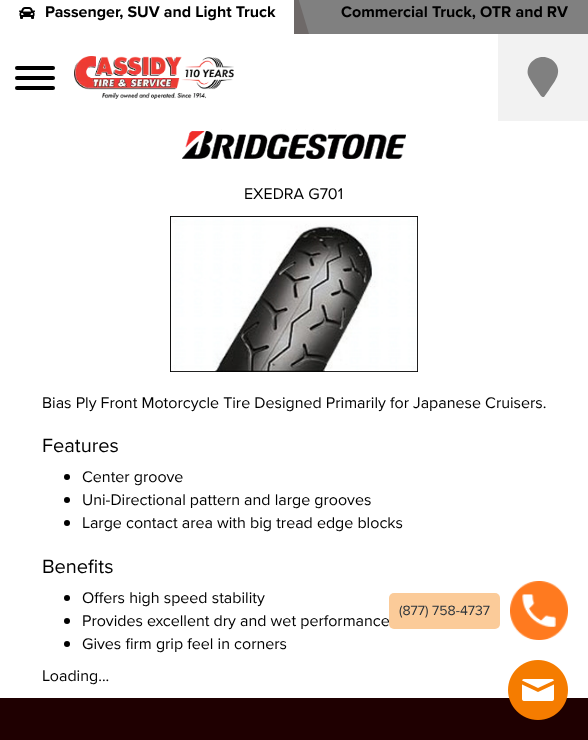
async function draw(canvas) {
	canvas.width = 588;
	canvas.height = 740;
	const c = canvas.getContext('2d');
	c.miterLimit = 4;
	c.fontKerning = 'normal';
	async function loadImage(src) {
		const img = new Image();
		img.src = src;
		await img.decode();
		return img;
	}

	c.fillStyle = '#fff';
	c.fillRect(0, 0, 588, 740);
	c.drawImage(await loadImage('img1.png'), 19, 7, 16, 12);
	c.font = 'bold 16px Proxima Nova';
	c.fillStyle = '#000';
	c.fillText('Passenger, SUV and Light Truck', 45, 17);
	c.fillStyle = '#808080';
	c.fillRect(298, 0, 290, 34);
	c.fillStyle = '#6e6968';
	c.beginPath();
	c.moveTo(294, 34);
	c.lineTo(294, -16);
	c.lineTo(309, 34);
	c.closePath();
	c.fill();
	c.fillStyle = '#000';
	c.fillText('Commercial Truck, OTR and RV', 341, 17);
	c.beginPath();
	c.roundRect(15, 76, 40, 4, 2);
	c.fill();
	c.beginPath();
	c.roundRect(15, 66, 40, 4, 2);
	c.fill();
	c.beginPath();
	c.roundRect(15, 86, 40, 4, 2);
	c.fill();
	c.drawImage(await loadImage('img2.png'), 74, 56, 160, 43);
	c.fillStyle = '#f2f2f2';
	c.fillRect(498, 34, 90, 87);
	c.fillStyle = '#808080';
	c.beginPath();
	c.moveTo(541, 96);
	c.bezierCurveTo(538, 91, 530, 81, 528, 75);
	c.bezierCurveTo(525, 59, 546, 50, 556, 64);
	c.bezierCurveTo(562, 74, 554, 82, 549, 90);
	c.lineTo(544, 97);
	c.bezierCurveTo(543, 97, 542, 97, 541, 96);
	c.closePath();
	c.fill();
	c.drawImage(await loadImage('img3.png'), 182, 129, 224, 30);
	c.font = '16px Proxima Nova';
	c.fillStyle = '#000';
	c.fillText('EXEDRA G701', 244, 199);
	c.drawImage(await loadImage('img4.png'), 170, 216, 248, 156);
	c.fillText('Bias Ply Front Motorcycle Tire Designed Primarily for Japanese Cruisers.', 42, 408);
	c.font = '20px Proxima Nova';
	c.fillText('Features', 42, 452);
	c.beginPath();
	c.arc(67, 477, 3, 0, 2 * Math.PI);
	c.fill();
	c.font = '16px Proxima Nova';
	c.fillText('Center groove', 82, 482);
	c.beginPath();
	c.arc(67, 500, 3, 0, 2 * Math.PI);
	c.fill();
	c.fillText('Uni-Directional pattern and large grooves', 82, 505);
	c.beginPath();
	c.arc(67, 523, 3, 0, 2 * Math.PI);
	c.fill();
	c.fillText('Large contact area with big tread edge blocks', 82, 528);
	c.font = '20px Proxima Nova';
	c.fillText('Benefits', 42, 573);
	c.beginPath();
	c.arc(67, 598, 3, 0, 2 * Math.PI);
	c.fill();
	c.font = '16px Proxima Nova';
	c.fillText('Offers high speed stability', 82, 603);
	c.beginPath();
	c.arc(67, 621, 3, 0, 2 * Math.PI);
	c.fill();
	c.fillText('Provides excellent dry and wet performance', 82, 626);
	c.beginPath();
	c.arc(67, 644, 3, 0, 2 * Math.PI);
	c.fill();
	c.fillText('Gives firm grip feel in corners', 82, 649);
	c.fillText('Loading...', 42, 681);
	c.fillStyle = '#fbcb99';
	c.beginPath();
	c.roundRect(389, 593, 111, 36, 5);
	c.fill();
	c.font = '14px Proxima Nova';
	c.fillStyle = '#2c343b';
	c.fillText('(877) 758-4737', 399, 615);
	c.drawImage(await loadImage('img5.png'), 510, 581, 58, 59);
	c.fillStyle = '#1f0001';
	c.fillRect(0, 698, 588, 42);
	c.drawImage(await loadImage('img6.png'), 508, 660, 60, 60);
}

draw(document.querySelector('canvas'));
